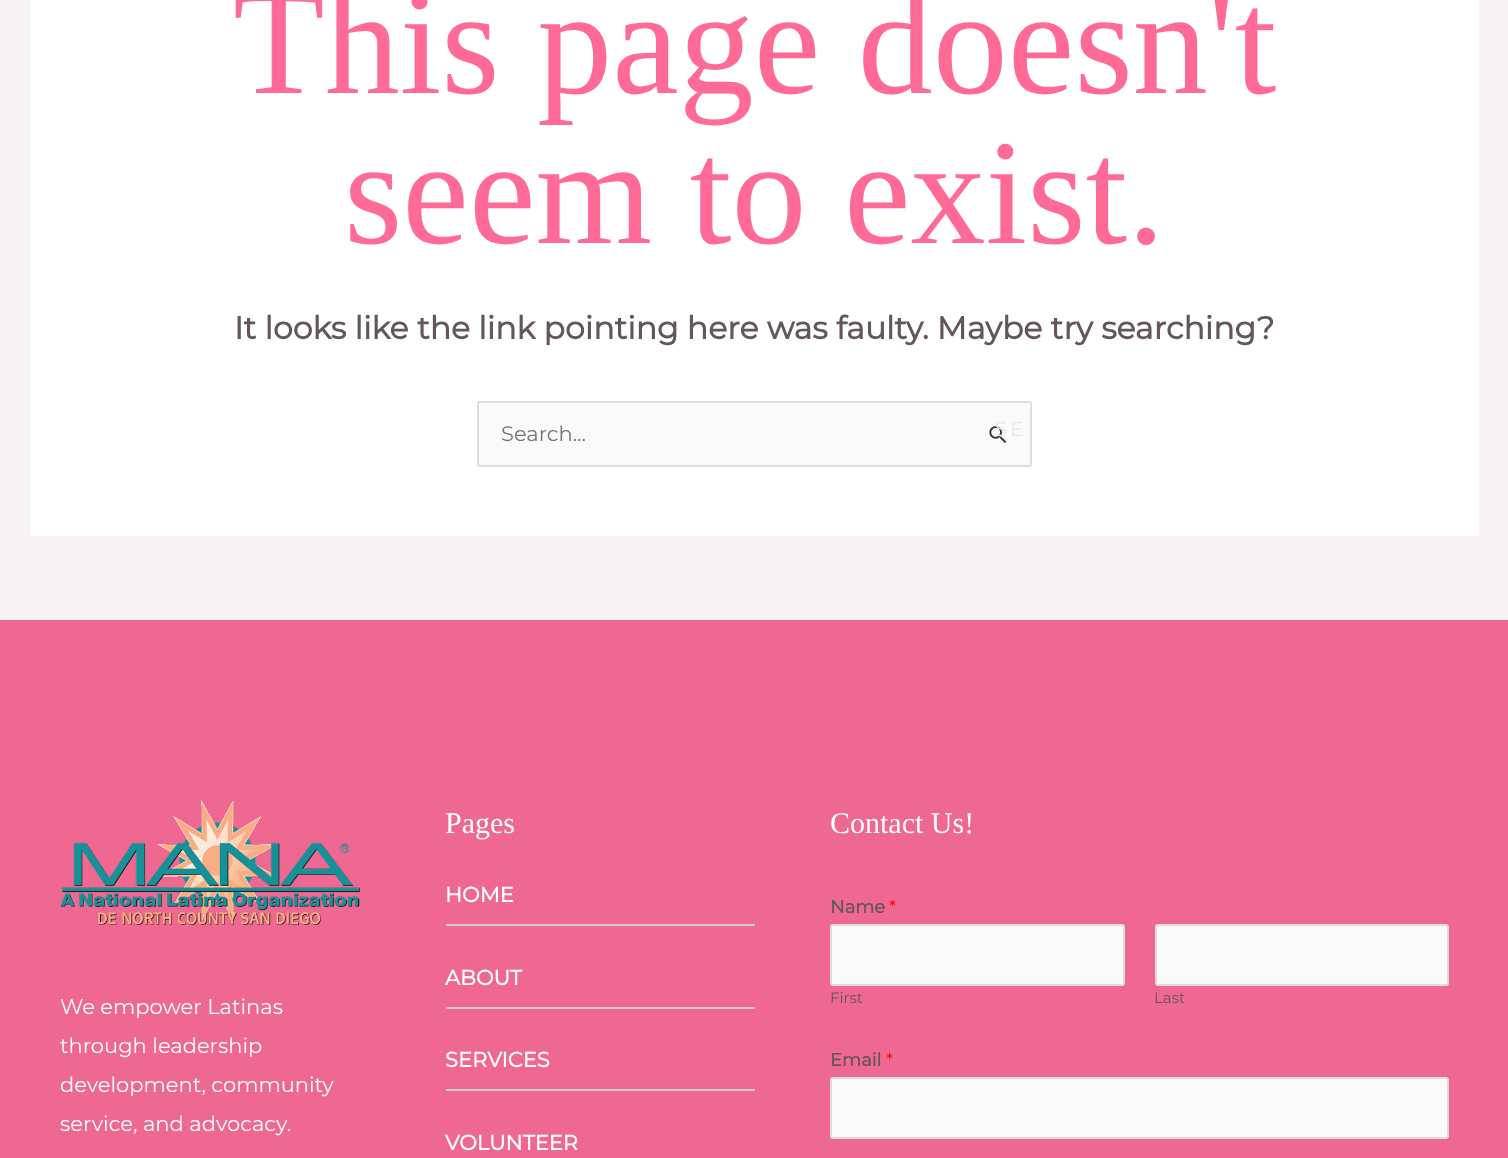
async function draw(canvas) {
	canvas.width = 1508;
	canvas.height = 1158;
	const c = canvas.getContext('2d');
	c.miterLimit = 4;
	c.fontKerning = 'normal';
	async function loadImage(src) {
		const img = new Image();
		img.src = src;
		await img.decode();
		return img;
	}

	c.fillStyle = '#f8f3f5';
	c.fillRect(0, 0, 1508, 1158);
	c.fillStyle = '#fff';
	c.fillRect(30, 0, 1449, 536);
	c.font = '150px Liberation Serif';
	c.fillStyle = '#ff6a97';
	c.fillText('This page doesn\'t', 233, 93);
	c.fillText('seem to exist.', 344, 243);
	c.font = 'bold 31.5px Montserrat';
	c.fillStyle = '#645659';
	c.fillText('It looks like the link pointing here was faulty. Maybe try searching?', 234, 339);
	c.fillStyle = '#fafafa';
	c.beginPath();
	c.roundRect(478, 402, 553, 64, 2);
	c.fill();
	c.strokeStyle = '#ddd';
	c.lineWidth = 2;
	c.stroke();
	c.font = '100 21px Montserrat';
	c.fillStyle = '#757575';
	c.fillText('Search...', 501, 441);
	c.drawImage(await loadImage('img1.png'), 989, 426, 18, 17);
	c.letterSpacing = '3px';
	c.font = '100 20px Montserrat';
	c.fillStyle = '#e7e7e7';
	c.fillText('SE', 995, 436);
	c.fillStyle = '#ee6891';
	c.fillRect(0, 620, 1508, 538);
	c.drawImage(await loadImage('img2.png'), 60, 799, 300, 126);
	c.letterSpacing = '0px';
	c.font = '100 21px Montserrat';
	c.fillStyle = '#fff';
	for (const [text, x, y] of [
		['We empower Latinas', 60, 1014],
		['through leadership', 60, 1053],
		['development, community', 60, 1092],
		['service, and advocacy.', 60, 1131],
	]) {
		c.fillText(text, x, y);
	}
	c.font = '30px Liberation Serif';
	c.fillText('Pages', 445, 833);
	c.font = 'bold 21px Montserrat';
	c.fillText('HOME', 445, 902);
	c.fillStyle = '#ccc';
	c.fillRect(446, 924, 309, 2);
	c.fillStyle = '#fff';
	c.fillText('ABOUT', 445, 985);
	c.fillStyle = '#ccc';
	c.fillRect(446, 1007, 309, 2);
	c.fillStyle = '#fff';
	c.fillText('SERVICES', 445, 1067);
	c.fillStyle = '#ccc';
	c.fillRect(446, 1089, 309, 2);
	c.fillStyle = '#fff';
	c.fillText('VOLUNTEER', 445, 1150);
	c.font = '30px Liberation Serif';
	c.fillText('Contact Us!', 830, 833);
	c.font = 'bold 18px Montserrat';
	c.fillStyle = '#645659';
	c.fillText('Name', 830, 913);
	c.font = '100 18px Montserrat';
	c.fillStyle = '#f00';
	c.fillText('*', 889, 913);
	c.fillStyle = '#fafafa';
	c.beginPath();
	c.roundRect(831, 925, 293, 60, 2);
	c.fill();
	c.stroke();
	c.font = '100 15px Montserrat';
	c.fillStyle = '#645659';
	c.fillText('First', 830, 1003);
	c.fillStyle = '#fafafa';
	c.beginPath();
	c.roundRect(1156, 925, 292, 60, 2);
	c.fill();
	c.stroke();
	c.fillStyle = '#645659';
	c.fillText('Last', 1154, 1003);
	c.font = 'bold 18px Montserrat';
	c.fillText('Email', 830, 1066);
	c.font = '100 18px Montserrat';
	c.fillStyle = '#f00';
	c.fillText('*', 886, 1066);
	c.fillStyle = '#fafafa';
	c.beginPath();
	c.roundRect(831, 1078, 617, 60, 2);
	c.fill();
	c.stroke();
}

draw(document.querySelector('canvas'));
